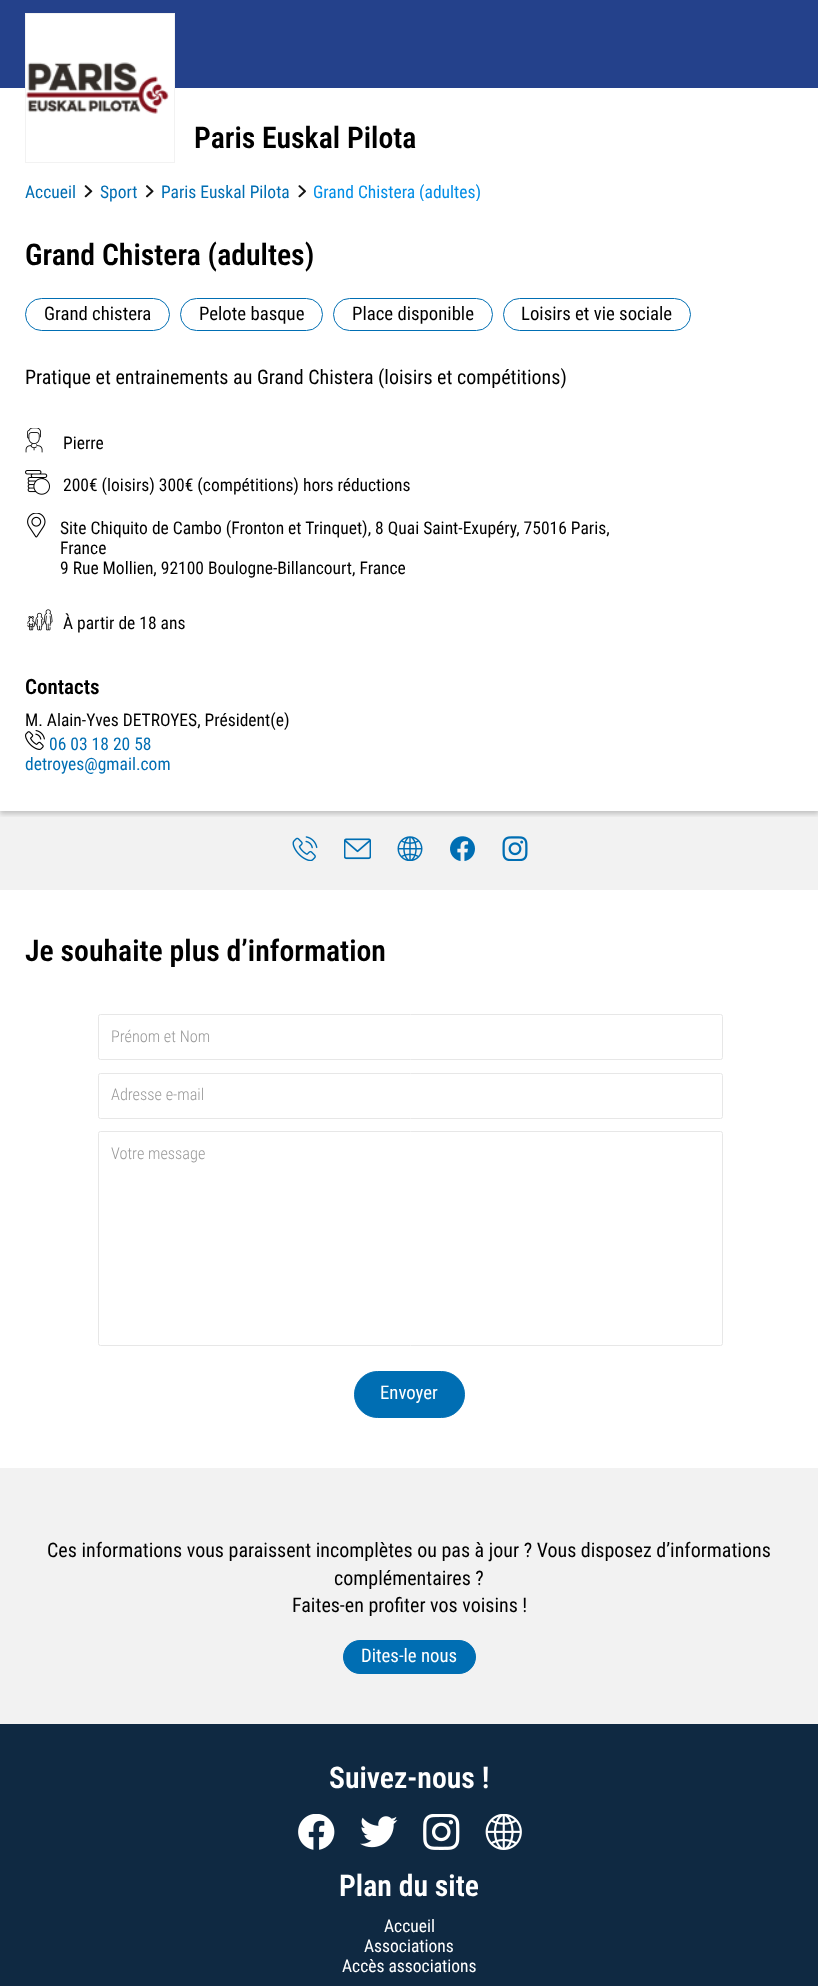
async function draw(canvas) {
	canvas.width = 818;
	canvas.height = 1986;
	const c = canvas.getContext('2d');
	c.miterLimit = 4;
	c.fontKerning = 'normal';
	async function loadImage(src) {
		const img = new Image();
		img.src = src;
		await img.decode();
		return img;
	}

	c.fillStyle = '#fff';
	c.fillRect(0, 0, 818, 1986);
	c.fillStyle = '#24418b';
	c.fillRect(0, 0, 818, 88);
	c.fillStyle = '#f2f2f2';
	c.fillRect(0, 811, 818, 79);
	c.save();
	c.beginPath();
	c.rect(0, 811, 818, 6);
	c.clip();
	c.fillStyle = '#00000033';
	c.filter = 'blur(2.5px)';
	c.beginPath();
	c.rect(0, 15, 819, 799);
	c.fill();
	c.filter = 'none';
	c.restore();
	c.fillStyle = '#fff';
	c.fillRect(26, 14, 148, 74);
	c.strokeStyle = '#f2f2f2';
	c.strokeRect(25.5, 13.5, 149, 149);
	c.drawImage(await loadImage('img1.png'), 26, 62, 143, 52);
	c.font = '600 29.75px Roboto Condensed';
	c.fillStyle = '#000';
	c.fillText('Paris Euskal Pilota', 194, 148);
	c.font = '17.5px Roboto Condensed';
	c.fillStyle = '#006eb3';
	c.fillText('Accueil', 25, 198);
	c.drawImage(await loadImage('img2.png'), 84, 185, 9, 13);
	c.fillText('Sport', 100, 198);
	c.drawImage(await loadImage('img3.png'), 145, 185, 9, 13);
	c.fillText('Paris Euskal Pilota', 161, 198);
	c.drawImage(await loadImage('img4.png'), 298, 185, 8, 13);
	c.save();
	c.beginPath();
	c.rect(25, 181, 769, 20);
	c.clip();
	c.fillStyle = '#008de6';
	c.fillText('Grand Chistera (adultes)', 313, 198);
	c.restore();
	c.font = '600 29.75px Roboto Condensed';
	c.fillStyle = '#000';
	c.fillText('Grand Chistera (adultes)', 25, 265);
	c.beginPath();
	c.roundRect(25.5, 298.5, 144, 32, 16);
	c.strokeStyle = '#006eb3';
	c.stroke();
	c.font = '18.75px Roboto Condensed';
	c.fillText('Grand chistera', 44, 320);
	c.beginPath();
	c.roundRect(180.5, 298.5, 142, 32, 16);
	c.stroke();
	c.fillText('Pelote basque', 199, 320);
	c.beginPath();
	c.roundRect(333.5, 298.5, 159, 32, 16);
	c.stroke();
	c.fillText('Place disponible', 352, 320);
	c.beginPath();
	c.roundRect(503.5, 298.5, 187, 32, 16);
	c.stroke();
	c.fillText('Loisirs et vie sociale', 521, 320);
	c.font = '20px Roboto Condensed';
	c.fillText('Pratique et entrainements au Grand Chistera (loisirs et compétitions)', 25, 384);
	c.drawImage(await loadImage('img5.png'), 25, 428, 18, 25);
	c.font = '17.5px Roboto Condensed';
	c.fillText('Pierre', 63, 449);
	c.drawImage(await loadImage('img6.png'), 25, 470, 25, 25);
	c.fillText('200€ (loisirs) 300€ (compétitions) hors réductions', 63, 491);
	c.drawImage(await loadImage('img7.png'), 27, 513, 19, 25);
	for (const [text, x, y] of [
		['Site Chiquito de Cambo (Fronton et Trinquet), 8 Quai Saint-Exupéry, 75016 Paris,', 60, 534],
		['France', 60, 554],
		['9 Rue Mollien, 92100 Boulogne-Billancourt, France', 60, 574],
	]) {
		c.fillText(text, x, y);
	}
	c.drawImage(await loadImage('img8.png'), 27, 609, 26, 22);
	c.fillText('À partir de 18 ans', 63, 629);
	c.font = '600 21px Roboto Condensed';
	c.fillText('Contacts', 25, 694);
	c.font = '17.5px Roboto Condensed';
	c.fillText('M. Alain-Yves DETROYES, Président(e)', 25, 726);
	c.drawImage(await loadImage('img9.png'), 25, 730, 20, 20);
	c.fillStyle = '#006eb3';
	c.fillText('06 03 18 20 58', 49, 750);
	c.fillText('detroyes@gmail.com', 25, 770);
	c.drawImage(await loadImage('img10.png'), 292, 836, 26, 25);
	c.drawImage(await loadImage('img11.png'), 344, 838, 27, 22);
	c.drawImage(await loadImage('img12.png'), 397, 836, 26, 25);
	c.drawImage(await loadImage('img13.png'), 450, 836, 25, 25);
	c.drawImage(await loadImage('img14.png'), 502, 836, 26, 25);
	c.font = '600 29.75px Roboto Condensed';
	c.fillStyle = '#000';
	c.fillText('Je souhaite plus d’information', 25, 961);
	c.beginPath();
	c.roundRect(98.5, 1014.5, 624, 45, 2);
	c.strokeStyle = '#e7e7e7';
	c.stroke();
	c.font = '300 16.25px Roboto Condensed';
	c.fillStyle = '#999';
	c.fillText('Prénom et Nom', 111, 1042);
	c.beginPath();
	c.roundRect(98.5, 1073.5, 624, 45, 2);
	c.stroke();
	c.fillText('Adresse e-mail', 111, 1100);
	c.beginPath();
	c.roundRect(98.5, 1131.5, 624, 214, 2);
	c.stroke();
	c.fillText('Votre message', 111, 1159);
	c.fillStyle = '#006eb3';
	c.beginPath();
	c.roundRect(354.5, 1371.5, 110, 46, 23);
	c.fill();
	c.strokeStyle = '#006eb3';
	c.stroke();
	c.font = '18.75px Roboto Condensed';
	c.fillStyle = '#fff';
	c.fillText('Envoyer', 380, 1399);
	c.fillStyle = '#f2f2f2';
	c.fillRect(0, 1468, 818, 256);
	c.font = '20px Roboto Condensed';
	c.fillStyle = '#000';
	for (const [text, x, y] of [
		['Ces informations vous paraissent incomplètes ou pas à jour ? Vous disposez d’informations', 47, 1557],
		['complémentaires ?', 334, 1585],
		['Faites-en profiter vos voisins !', 292, 1612],
	]) {
		c.fillText(text, x, y);
	}
	c.fillStyle = '#006eb3';
	c.beginPath();
	c.roundRect(343.5, 1640.5, 132, 33, 16.5);
	c.fill();
	c.stroke();
	c.font = '18.75px Roboto Condensed';
	c.fillStyle = '#fff';
	c.fillText('Dites-le nous', 361, 1662);
	c.fillStyle = '#0f2942';
	c.fillRect(0, 1724, 818, 262);
	c.font = '600 29.75px Roboto Condensed';
	c.fillStyle = '#fff';
	c.fillText('Suivez-nous !', 329, 1788);
	c.drawImage(await loadImage('img15.png'), 298, 1814, 37, 36);
	c.drawImage(await loadImage('img16.png'), 360, 1816, 38, 32);
	c.drawImage(await loadImage('img17.png'), 423, 1814, 37, 36);
	c.drawImage(await loadImage('img18.png'), 485, 1814, 37, 36);
	c.fillText('Plan du site', 339, 1896);
	c.font = '17.5px Roboto Condensed';
	for (const [text, x, y] of [
		['Accueil', 384, 1932],
		['Associations', 364, 1952],
		['Accès associations', 342, 1972],
	]) {
		c.fillText(text, x, y);
	}
}

draw(document.querySelector('canvas'));
